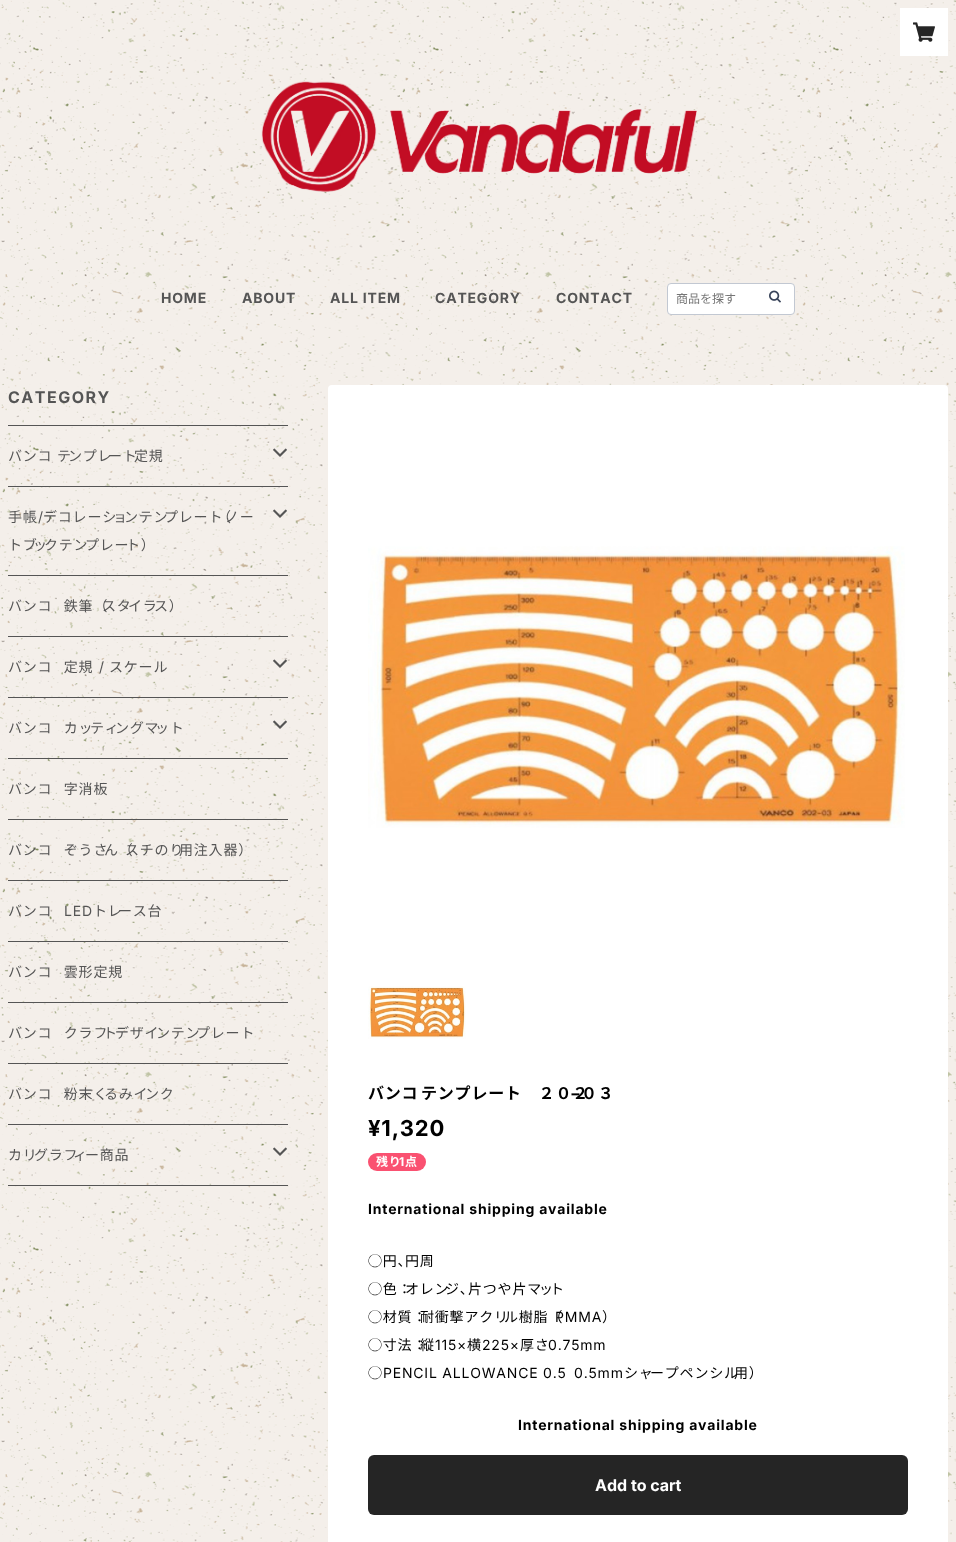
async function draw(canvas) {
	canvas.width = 956;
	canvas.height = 1542;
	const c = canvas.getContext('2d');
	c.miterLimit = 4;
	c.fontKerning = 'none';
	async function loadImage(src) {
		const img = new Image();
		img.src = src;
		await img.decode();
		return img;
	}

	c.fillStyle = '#fff';
	c.fillRect(0, 0, 956, 1542);
	c.drawImage(await loadImage('img1.png'), 0, 0, 956, 1542);
	c.fillRect(900, 8, 48, 48);
	c.drawImage(await loadImage('img2.png'), 913, 22, 22, 20);
	c.drawImage(await loadImage('img3.png'), 261, 81, 436, 111);
	c.letterSpacing = '0.8px';
	c.font = 'bold 14px Inter';
	c.fillStyle = '#555';
	for (const [text, x, y] of [
		['HOME', 161, 303],
		['ABOUT', 242, 303],
		['ALL ITEM', 330, 303],
		['CATEGORY', 435, 303],
		['CONTACT', 556, 303],
	]) {
		c.fillText(text, x, y);
	}
	c.fillStyle = '#fff';
	c.beginPath();
	c.roundRect(667.5, 283.5, 127, 31, 3.5);
	c.fill();
	c.strokeStyle = '#c2c8d2';
	c.stroke();
	c.letterSpacing = '0px';
	c.font = '12px Noto Sans JP';
	c.fillStyle = '#757575';
	c.fillText('商品を探す', 676, 303);
	c.drawImage(await loadImage('img4.png'), 769, 290, 12, 13);
	c.letterSpacing = '1.5px';
	c.font = 'bold 16px Inter';
	c.fillStyle = '#555';
	c.fillText('CATEGORY', 8, 403);
	c.fillRect(8, 425, 280, 1);
	c.fillRect(8, 1185, 280, 1);
	c.letterSpacing = '0.8px';
	c.wordSpacing = '1px';
	c.font = '14px Noto Sans JP';
	c.fillText('バンコ', 8, 461);
	c.fillText('テ', 57, 461);
	c.fillText('ンプレ', 68, 461);
	c.fillText('ート', 108, 461);
	c.fillText('定規', 134, 461);
	c.drawImage(await loadImage('img5.png'), 273, 448, 14, 9);
	c.fillRect(8, 486, 280, 1);
	c.wordSpacing = '0px';
	c.fillText('手帳', 8, 522);
	c.font = '14px Inter';
	c.fillText('/', 38, 522);
	c.font = '14px Noto Sans JP';
	c.fillText('デコレーシ', 43, 522);
	c.fillText('ョ', 113, 522);
	c.fillText('ンテン', 124, 522);
	c.fillText('プレート', 164, 522);
	c.fillText('（', 217, 522);
	c.fillText('ノー', 225, 522);
	c.fillText('トブ', 8, 550);
	c.fillText('ッ', 33, 550);
	c.fillText('クテン', 44, 550);
	c.fillText('プレー', 85, 550);
	c.fillText('ト）', 126, 550);
	c.drawImage(await loadImage('img6.png'), 273, 509, 14, 9);
	c.fillRect(8, 575, 280, 1);
	c.fillText('バンコ', 8, 611);
	c.fillText('　鉄筆（', 49, 611);
	c.fillText('スタ', 102, 611);
	c.fillText('イラ', 128, 611);
	c.fillText('ス）', 154, 611);
	c.fillRect(8, 636, 280, 1);
	c.fillText('バンコ', 8, 672);
	c.fillText('　定規', 49, 672);
	c.font = '14px Inter';
	c.fillText('/', 99, 672);
	c.font = '14px Noto Sans JP';
	c.fillText('スケール', 109, 672);
	c.drawImage(await loadImage('img7.png'), 273, 659, 14, 9);
	c.fillRect(8, 697, 280, 1);
	c.fillText('バンコ', 8, 733);
	c.fillText('　カッ', 49, 733);
	c.fillText('ティ', 90, 733);
	c.fillText('ングマ', 115, 733);
	c.fillText('ット', 155, 733);
	c.drawImage(await loadImage('img8.png'), 273, 720, 14, 9);
	c.fillRect(8, 758, 280, 1);
	c.fillText('バンコ', 8, 794);
	c.fillText('　字消板', 49, 794);
	c.fillRect(8, 819, 280, 1);
	c.fillText('バンコ', 8, 855);
	c.fillText('　ぞうさ', 49, 855);
	c.fillText('ん（', 104, 855);
	c.fillText('スチのり', 125, 855);
	c.fillText('用注入器）', 179, 855);
	c.fillRect(8, 880, 280, 1);
	c.fillText('バンコ', 8, 916);
	c.font = '14px Inter';
	c.fillText('LED', 64, 916);
	c.font = '14px Noto Sans JP';
	c.fillText('トレ', 93, 916);
	c.fillText('ース台', 118, 916);
	c.fillRect(8, 941, 280, 1);
	c.fillText('バンコ', 8, 977);
	c.fillText('　雲形定規', 49, 977);
	c.fillRect(8, 1002, 280, 1);
	c.fillText('バンコ', 8, 1038);
	c.fillText('　クラフ', 49, 1038);
	c.fillText('ト', 103, 1038);
	c.fillText('デザイ', 115, 1038);
	c.fillText('ンテン', 156, 1038);
	c.fillText('プレート', 196, 1038);
	c.fillRect(8, 1063, 280, 1);
	c.fillText('バンコ', 8, 1099);
	c.fillText('　粉末く', 49, 1099);
	c.fillText('るみイ', 104, 1099);
	c.fillText('ンク', 145, 1099);
	c.fillRect(8, 1124, 280, 1);
	c.fillText('カリ', 8, 1160);
	c.fillText('グラフ', 34, 1160);
	c.fillText('ィ', 73, 1160);
	c.fillText('ー商品', 85, 1160);
	c.drawImage(await loadImage('img9.png'), 273, 1147, 14, 9);
	c.fillStyle = '#fff';
	c.beginPath();
	c.roundRect(328, 385, 620, 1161, 4);
	c.fill();
	c.drawImage(await loadImage('img10.png'), 368, 546, 537, 282);
	c.drawImage(await loadImage('img11.png'), 368, 986, 98, 53);
	c.font = 'bold 16px Noto Sans JP';
	c.fillStyle = '#000';
	c.fillText('バンコ', 368, 1099);
	c.font = 'bold 16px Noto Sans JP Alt';
	c.fillText('テンプレート　２０２', 421, 1099);
	c.font = 'bold 16px Inter';
	c.fillText('−', 570, 1099);
	c.font = 'bold 16px Noto Sans JP Alt';
	c.fillText('０３', 581, 1099);
	c.font = 'bold 22px Inter';
	c.fillText('¥1,320', 368, 1136);
	c.fillStyle = '#fa5171';
	c.beginPath();
	c.roundRect(368, 1153, 58, 18, 9);
	c.fill();
	c.font = 'bold 12px Noto Sans JP';
	c.fillStyle = '#fff';
	c.fillText('残り', 376, 1166);
	c.font = 'bold 12px Inter';
	c.fillText('1', 399, 1166);
	c.font = 'bold 12px Noto Sans JP';
	c.fillText('点', 405, 1166);
	c.font = 'bold 14px Inter';
	c.fillStyle = '#000';
	c.fillText('International shipping available', 368, 1214);
	c.font = '14px Noto Sans JP';
	for (const [text, x, y] of [
		['◯円、', 368, 1266],
		['円周', 405, 1266],
		['◯色：', 368, 1294],
		['オレン', 405, 1294],
		['ジ、', 445, 1294],
		['片つや片マ', 468, 1294],
		['ッ', 539, 1294],
		['ト', 550, 1294],
		['◯材質：', 368, 1322],
		['耐衝撃アクリ', 420, 1322],
		['ル樹脂（', 504, 1322],
	]) {
		c.fillText(text, x, y);
	}
	c.font = '14px Inter';
	c.fillText('PMMA', 555, 1322);
	c.font = '14px Noto Sans JP';
	c.fillText('）', 602, 1322);
	c.fillText('◯寸法：', 368, 1350);
	c.fillText('縦', 420, 1350);
	c.font = '14px Inter';
	c.fillText('115×', 435, 1350);
	c.font = '14px Noto Sans JP';
	c.fillText('横', 467, 1350);
	c.font = '14px Inter';
	c.fillText('225×', 482, 1350);
	c.font = '14px Noto Sans JP';
	c.fillText('厚さ', 520, 1350);
	c.font = '14px Inter';
	c.fillText('0.75mm', 548, 1350);
	c.font = '14px Noto Sans JP';
	c.fillText('◯', 368, 1378);
	c.font = '14px Inter';
	c.fillText('PENCIL ALLOWANCE 0.5', 383, 1378);
	c.fillText('0.5mm', 574, 1378);
	c.font = '14px Noto Sans JP';
	c.fillText('シャ', 624, 1378);
	c.fillText('ープペンシル', 650, 1378);
	c.fillText('用）', 734, 1378);
	c.font = 'bold 14px Inter';
	c.fillText('International shipping available', 518, 1430);
	c.fillStyle = '#252525';
	c.beginPath();
	c.roundRect(368, 1455, 540, 60, 6);
	c.fill();
	c.letterSpacing = '0px';
	c.font = 'bold 16px Inter';
	c.fillStyle = '#fff';
	c.fillText('Add to cart', 595, 1491);
}

draw(document.querySelector('canvas'));
